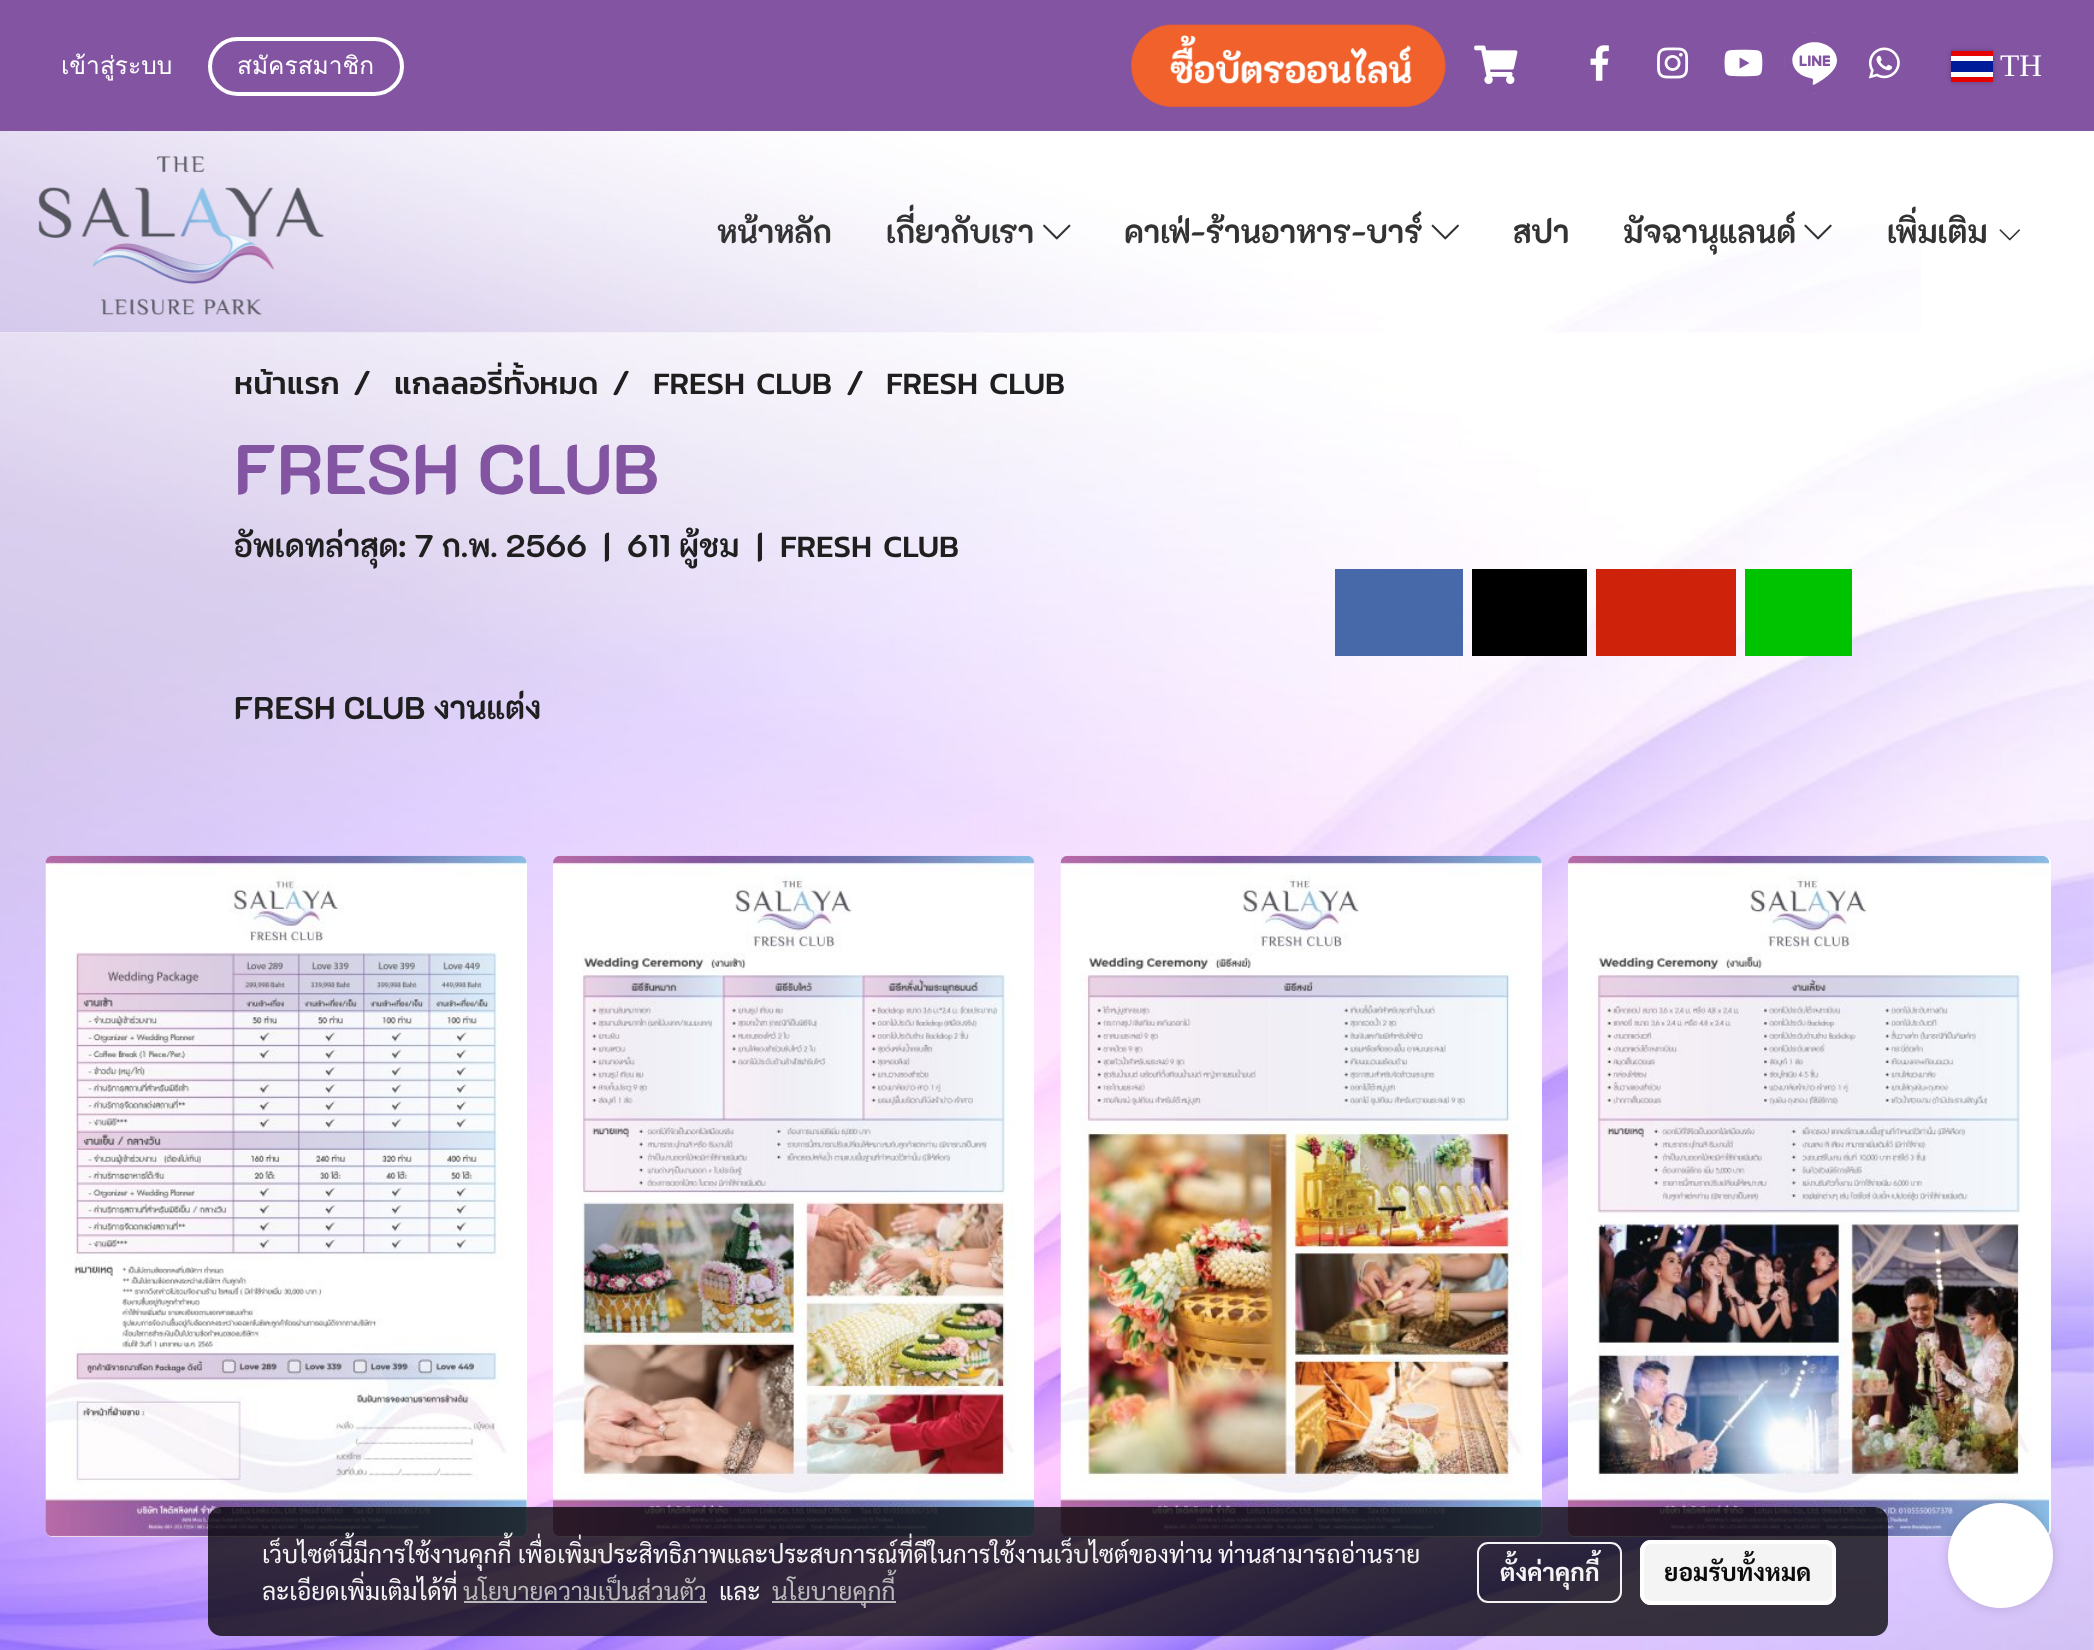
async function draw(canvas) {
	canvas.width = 2094;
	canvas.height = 1650;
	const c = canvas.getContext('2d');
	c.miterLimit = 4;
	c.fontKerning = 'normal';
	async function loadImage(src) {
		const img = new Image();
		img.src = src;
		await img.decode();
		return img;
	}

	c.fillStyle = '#fff';
	c.fillRect(0, 0, 2094, 1650);
	c.drawImage(await loadImage('img1.png'), 0, 333, 2094, 1317);
	c.drawImage(await loadImage('img2.png'), 0, 131, 1921, 202);
	c.fillStyle = '#8254a2';
	c.fillRect(0, 0, 2094, 131);
	c.font = '24.5px Loma';
	c.fillStyle = '#fff';
	c.fillText('เข้าสู่ระบบ', 61, 74);
	c.beginPath();
	c.roundRect(210, 39, 192, 55, 27.5);
	c.strokeStyle = '#fff';
	c.lineWidth = 4;
	c.stroke();
	c.fillText('สมัครสมาชิก', 237, 74);
	c.drawImage(await loadImage('img3.png'), 1130, 24, 316, 84);
	c.drawImage(await loadImage('img4.png'), 1474, 45, 44, 39);
	c.drawImage(await loadImage('img5.png'), 1590, 45, 19, 36);
	c.drawImage(await loadImage('img6.png'), 1657, 47, 32, 32);
	c.drawImage(await loadImage('img7.png'), 1724, 49, 39, 28);
	c.drawImage(await loadImage('img8.png'), 1784, 32, 62, 62);
	c.drawImage(await loadImage('img9.png'), 1868, 47, 32, 32);
	c.fillStyle = '#00000040';
	c.filter = 'blur(2px)';
	c.beginPath();
	c.rect(1951, 51, 42, 31);
	c.fill();
	c.filter = 'none';
	for (const [x, y, w, h, color] of [
		[1951, 56, 42, 21, '#fff'],
		[1951, 61, 42, 11, '#001b9a'],
		[1951, 51, 42, 5, '#e70000'],
		[1951, 77, 42, 5, '#e70000'],
	]) {
		c.fillStyle = color;
		c.fillRect(x, y, w, h);
	}
	c.font = '31.5px Liberation Serif';
	c.fillStyle = '#fff';
	c.fillText('TH', 2000, 76);
	c.drawImage(await loadImage('img10.png'), 38, 156, 287, 159);
	c.font = 'bold 31.5px "K2D"';
	c.fillStyle = '#333';
	c.fillText('หน้าหลัก', 717, 243);
	c.fillText('เกี่ยวกับเรา', 886, 243);
	c.drawImage(await loadImage('img11.png'), 1043, 224, 28, 16);
	c.fillText('คาเฟ่-ร้านอาหาร-บาร์', 1124, 243);
	c.drawImage(await loadImage('img12.png'), 1431, 224, 28, 16);
	c.fillText('สปา', 1513, 243);
	c.fillText('มัจฉานุแลนด์', 1623, 243);
	c.drawImage(await loadImage('img13.png'), 1804, 224, 28, 16);
	c.fillText('เพิ่มเติม', 1887, 243);
	c.drawImage(await loadImage('img14.png'), 1999, 229, 21, 12);
	c.font = '500 31.5px Kanit';
	c.fillStyle = '#1f1f1f';
	c.fillText('หน้าแรก', 234, 394);
	c.font = 'bold 31.5px "K2D"';
	c.fillText('/', 353, 394);
	c.font = '500 31.5px Kanit';
	c.fillText('แกลลอรี่ทั้งหมด', 394, 394);
	c.font = 'bold 31.5px "K2D"';
	c.fillText('/', 612, 394);
	c.font = '500 31.5px Kanit';
	c.fillText('FRESH CLUB', 653, 394);
	c.font = 'bold 31.5px "K2D"';
	c.fillText('/', 846, 394);
	c.font = '500 31.5px Kanit';
	c.fillText('FRESH CLUB', 886, 394);
	c.font = 'bold 70px "K2D"';
	c.fillStyle = '#8254a2';
	c.fillText('FRESH CLUB', 234, 494);
	c.font = 'bold 31.5px "K2D"';
	c.fillStyle = '#1f1f1f';
	for (const [text, x, y] of [
		['อัพเดทล่าสุด: 7 ก.พ. 2566', 234, 557],
		['|', 603, 557],
		['611 ผู้ชม', 627, 557],
		['|', 756, 557],
	]) {
		c.fillText(text, x, y);
	}
	c.font = '500 31.5px Kanit';
	c.fillText('FRESH CLUB', 780, 557);
	for (const [x, y, w, h, color] of [
		[1335, 569, 128, 87, '#4769a9'],
		[1472, 569, 115, 87, '#000'],
		[1596, 569, 140, 87, '#ce220a'],
		[1745, 569, 107, 87, '#00c300'],
	]) {
		c.fillStyle = color;
		c.fillRect(x, y, w, h);
	}
	c.font = 'bold 31.5px "K2D"';
	c.fillStyle = '#1f1f1f';
	c.fillText('FRESH CLUB งานแต่ง', 234, 719);
	c.fillStyle = '#fff';
	c.beginPath();
	c.roundRect(46, 856, 481, 681, 7);
	c.fill();
	c.drawImage(await loadImage('img15.png'), 45, 855, 482, 682);
	c.beginPath();
	c.roundRect(553, 856, 481, 681, 7);
	c.fill();
	c.drawImage(await loadImage('img16.png'), 553, 855, 482, 682);
	c.beginPath();
	c.roundRect(1061, 856, 481, 681, 7);
	c.fill();
	c.drawImage(await loadImage('img17.png'), 1060, 855, 482, 682);
	c.beginPath();
	c.roundRect(1568, 856, 483, 681, 7);
	c.fill();
	c.drawImage(await loadImage('img18.png'), 1568, 855, 482, 682);
	c.fillStyle = '#000000c2';
	c.beginPath();
	c.roundRect(208, 1507, 1680, 129, 14);
	c.fill();
	c.font = '24.5px Sarabun';
	c.fillStyle = '#f5f4f5';
	for (const [text, x, y] of [
		['เว็บไซต์นี้มีการใช้งานคุกกี้ เพื่อเพิ่มประสิทธิภาพและประสบการณ์ที่ดีในการใช้งานเว็บไซต์ของท่าน', 262, 1563],
		['ท่านสามารถอ่านราย', 1218, 1563],
		['ละเอียดเพิ่มเติมได้ที่', 262, 1600],
	]) {
		c.fillText(text, x, y);
	}
	c.fillStyle = '#bbbabb';
	c.fillText('นโยบายความเป็นส่วนตัว', 463, 1600);
	c.fillStyle = '#c2c2c2f2';
	c.fillRect(464, 1601, 243, 2);
	c.fillStyle = '#f5f4f5';
	c.fillText('และ', 719, 1600);
	c.fillStyle = '#c2c2c2f2';
	c.fillRect(772, 1601, 124, 2);
	c.fillStyle = '#bbbabb';
	c.fillText('นโยบายคุกกี้', 772, 1600);
	c.beginPath();
	c.roundRect(1478, 1543, 143, 59, 10);
	c.strokeStyle = '#fffffff2';
	c.lineWidth = 2;
	c.stroke();
	c.font = 'bold 24.5px Sarabun';
	c.fillStyle = '#f5f4f5';
	c.fillText('ตั้งค่าคุกกี้', 1500, 1581);
	c.fillStyle = '#fffffff2';
	c.beginPath();
	c.roundRect(1640, 1540, 196, 65, 11);
	c.fill();
	c.beginPath();
	c.roundRect(1642, 1542, 192, 61, 9);
	c.lineWidth = 4;
	c.stroke();
	c.fillStyle = '#0c0c0c';
	c.fillText('ยอมรับทั้งหมด', 1664, 1581);
	c.fillStyle = '#00000024';
	c.filter = 'blur(6px)';
	c.beginPath();
	c.roundRect(1948, 1503, 105, 105, 52.5);
	c.fill();
	c.filter = 'none';
	c.fillStyle = '#fff';
	c.beginPath();
	c.arc(2000.5, 1555.5, 52.5, 0, 2 * Math.PI);
	c.fill();
}

draw(document.querySelector('canvas'));
